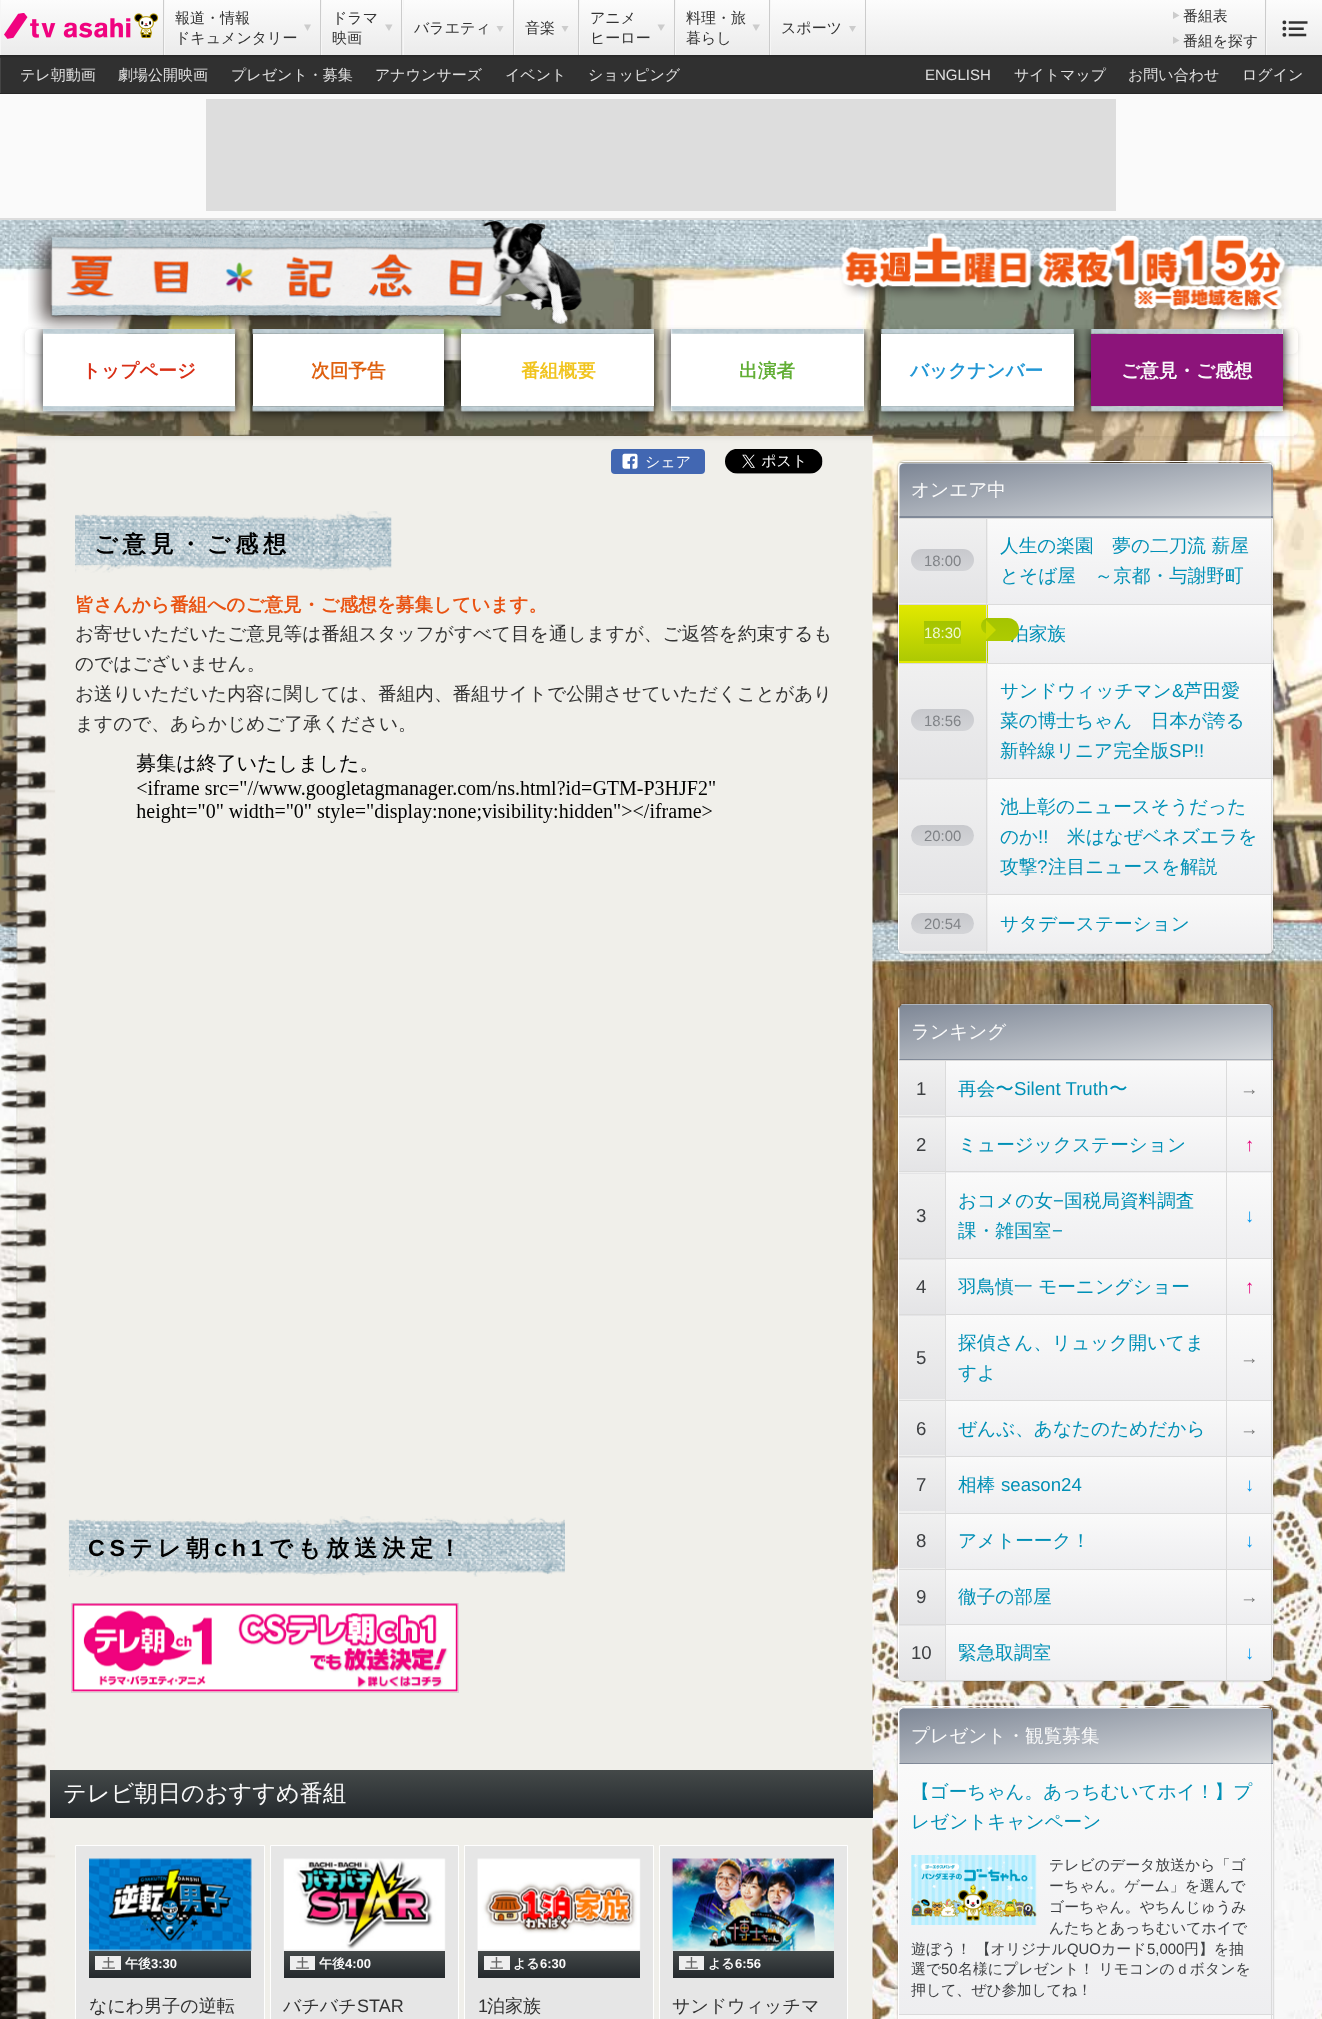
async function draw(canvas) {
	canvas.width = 1322;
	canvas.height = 2019;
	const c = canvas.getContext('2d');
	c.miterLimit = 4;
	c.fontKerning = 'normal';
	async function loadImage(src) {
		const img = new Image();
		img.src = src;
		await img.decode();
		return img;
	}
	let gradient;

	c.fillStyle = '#fafafa';
	c.fillRect(0, 0, 1322, 2019);
	c.fillStyle = '#303030';
	c.fillRect(0, 55, 1322, 38);
	c.fillStyle = '#444';
	c.fillRect(0, 58, 1, 35);
	c.fillStyle = '#0000004d';
	c.filter = 'blur(1px)';
	c.beginPath();
	c.rect(0, 1, 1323, 55);
	c.fill();
	c.filter = 'none';
	gradient = c.createLinearGradient(661, 0, 661, 55);
	gradient.addColorStop(0, '#fcfcfc');
	gradient.addColorStop(1, '#ebebeb');
	c.fillStyle = gradient;
	c.fillRect(1, 0, 1321, 55);
	c.fillStyle = '#ccc';
	c.fillRect(163, 0, 1, 55);
	c.fillStyle = '#f6f6f6';
	c.fillRect(0, 0, 1, 55);
	c.drawImage(await loadImage('img1.png'), 4, 13, 155, 26);
	c.fillStyle = '#ccc';
	c.fillRect(320, 0, 1, 55);
	c.fillStyle = '#f6f6f6';
	c.fillRect(164, 0, 1, 55);
	c.font = '500 15px WenQuanYi Zen Hei';
	c.fillStyle = '#333';
	c.fillText('報道・情報', 175, 23);
	c.fillStyle = '#ccc';
	c.beginPath();
	c.moveTo(304, 24.5);
	c.lineTo(311, 24.5);
	c.lineTo(307.5, 31);
	c.closePath();
	c.fill();
	c.fillStyle = '#333';
	c.fillText('ドキュメンタリー', 175, 43);
	c.fillStyle = '#ccc';
	c.fillRect(401, 0, 1, 55);
	c.fillStyle = '#f6f6f6';
	c.fillRect(321, 0, 1, 55);
	c.fillStyle = '#333';
	c.fillText('ドラマ', 332, 23);
	c.fillStyle = '#ccc';
	c.beginPath();
	c.moveTo(385, 24.5);
	c.lineTo(392.5, 24.5);
	c.lineTo(389, 31);
	c.closePath();
	c.fill();
	c.fillStyle = '#333';
	c.fillText('映画', 332, 43);
	c.fillStyle = '#ccc';
	c.fillRect(513, 0, 1, 55);
	c.fillStyle = '#f6f6f6';
	c.fillRect(403, 0, 1, 55);
	c.fillStyle = '#333';
	c.fillText('バラエティ', 414, 33);
	c.fillStyle = '#ccc';
	c.beginPath();
	c.moveTo(496.5, 26);
	c.lineTo(503.5, 26);
	c.lineTo(500, 32);
	c.closePath();
	c.fill();
	c.fillRect(578, 0, 1, 55);
	c.fillStyle = '#f6f6f6';
	c.fillRect(514, 0, 1, 55);
	c.fillStyle = '#333';
	c.fillText('音楽', 525, 33);
	c.fillStyle = '#ccc';
	c.beginPath();
	c.moveTo(561.5, 26);
	c.lineTo(568.5, 26);
	c.lineTo(565, 32);
	c.closePath();
	c.fill();
	c.fillRect(674, 0, 1, 55);
	c.fillStyle = '#f6f6f6';
	c.fillRect(579, 0, 1, 55);
	c.fillStyle = '#333';
	c.fillText('アニメ', 590, 23);
	c.fillStyle = '#ccc';
	c.beginPath();
	c.moveTo(657.5, 24.5);
	c.lineTo(665, 24.5);
	c.lineTo(661, 31);
	c.closePath();
	c.fill();
	c.fillStyle = '#333';
	c.fillText('ヒーロー', 590, 43);
	c.fillStyle = '#ccc';
	c.fillRect(769, 0, 1, 55);
	c.fillStyle = '#f6f6f6';
	c.fillRect(675, 0, 1, 55);
	c.fillStyle = '#333';
	c.fillText('料理・旅', 686, 23);
	c.fillStyle = '#ccc';
	c.beginPath();
	c.moveTo(752.5, 24.5);
	c.lineTo(760, 24.5);
	c.lineTo(756, 31);
	c.closePath();
	c.fill();
	c.fillStyle = '#333';
	c.fillText('暮らし', 686, 43);
	c.fillStyle = '#ccc';
	c.fillRect(865, 0, 1, 55);
	c.fillStyle = '#f6f6f6';
	c.fillRect(770, 0, 1, 55);
	c.fillStyle = '#333';
	c.fillText('スポーツ', 781, 33);
	c.fillStyle = '#ccc';
	c.beginPath();
	c.moveTo(849, 26);
	c.lineTo(856, 26);
	c.lineTo(852.5, 32);
	c.closePath();
	c.fill();
	c.fillRect(1265, 0, 1, 55);
	c.font = '500 14.9px WenQuanYi Zen Hei';
	c.fillStyle = '#333';
	c.fillText('番組表', 1183, 21);
	c.fillStyle = '#ccc';
	c.beginPath();
	c.moveTo(1173, 19);
	c.lineTo(1173, 11.5);
	c.lineTo(1179.5, 15.5);
	c.closePath();
	c.fill();
	c.fillStyle = '#333';
	c.fillText('番組を探す', 1183, 46);
	c.fillStyle = '#ccc';
	c.beginPath();
	c.moveTo(1173, 44);
	c.lineTo(1173, 36.5);
	c.lineTo(1179.5, 40.5);
	c.closePath();
	c.fill();
	c.fillStyle = '#f6f6f6';
	c.fillRect(1266, 0, 1, 55);
	c.drawImage(await loadImage('img2.png'), 1282, 20, 26, 17);
	c.fillStyle = '#262626';
	c.fillRect(0, 93, 1322, 1);
	c.font = '500 15px WenQuanYi Zen Hei';
	c.fillStyle = '#e0e0e0';
	for (const [text, x, y] of [
		['テレ朝動画', 20, 80],
		['劇場公開映画', 118, 80],
		['プレゼント・募集', 231, 80],
		['アナウンサーズ', 375, 80],
		['イベント', 505, 80],
		['ショッピング', 588, 80],
	]) {
		c.fillText(text, x, y);
	}
	c.font = '15px Liberation Sans';
	c.fillText('ENGLISH', 925, 80);
	c.font = '500 15px WenQuanYi Zen Hei';
	for (const [text, x, y] of [
		['サイトマップ', 1014, 80],
		['お問い合わせ', 1128, 80],
		['ログイン', 1242, 80],
	]) {
		c.fillText(text, x, y);
	}
	c.fillStyle = '#ddd';
	c.fillRect(0, 218, 1322, 2);
	c.fillRect(206, 99, 910, 112);
	c.drawImage(await loadImage('img3.png'), 0, 220, 1322, 1799);
	c.drawImage(await loadImage('img4.png'), 28, 221, 1264, 108);
	c.drawImage(await loadImage('img11.png'), 0, 436, 873, 1583);
	c.save();
	c.beginPath();
	c.moveTo(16, 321);
	c.lineTo(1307, 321);
	c.lineTo(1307, 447);
	c.lineTo(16, 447);
	c.closePath();
	c.moveTo(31, 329);
	c.lineTo(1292, 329);
	c.bezierCurveTo(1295.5, 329, 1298, 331.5, 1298, 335);
	c.lineTo(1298, 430);
	c.bezierCurveTo(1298, 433.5, 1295.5, 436, 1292, 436);
	c.lineTo(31, 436);
	c.bezierCurveTo(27.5, 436, 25, 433.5, 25, 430);
	c.lineTo(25, 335);
	c.bezierCurveTo(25, 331.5, 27.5, 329, 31, 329);
	c.closePath();
	c.clip('evenodd');
	c.fillStyle = '#00000012';
	c.filter = 'blur(2.5px)';
	c.beginPath();
	c.roundRect(25, 330, 1273, 108, 6);
	c.fill();
	c.filter = 'none';
	c.restore();
	c.save();
	c.beginPath();
	c.moveTo(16, 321);
	c.lineTo(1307, 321);
	c.lineTo(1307, 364);
	c.lineTo(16, 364);
	c.closePath();
	c.moveTo(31, 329);
	c.lineTo(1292, 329);
	c.bezierCurveTo(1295.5, 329, 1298, 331.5, 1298, 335);
	c.lineTo(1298, 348);
	c.bezierCurveTo(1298, 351.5, 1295.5, 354, 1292, 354);
	c.lineTo(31, 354);
	c.bezierCurveTo(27.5, 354, 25, 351.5, 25, 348);
	c.lineTo(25, 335);
	c.bezierCurveTo(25, 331.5, 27.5, 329, 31, 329);
	c.closePath();
	c.clip('evenodd');
	c.fillStyle = '#00000012';
	c.filter = 'blur(2.5px)';
	c.beginPath();
	c.roundRect(25, 330, 1273, 25, 6);
	c.fill();
	c.filter = 'none';
	c.restore();
	c.save();
	c.beginPath();
	c.roundRect(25, 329, 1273, 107, 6);
	c.clip();
	c.beginPath();
	c.moveTo(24, 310);
	c.lineTo(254, 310);
	c.lineTo(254, 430);
	c.lineTo(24, 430);
	c.closePath();
	c.moveTo(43, 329);
	c.lineTo(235, 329);
	c.lineTo(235, 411);
	c.lineTo(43, 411);
	c.closePath();
	c.clip('evenodd');
	c.fillStyle = '#000';
	c.filter = 'blur(6px)';
	c.beginPath();
	c.rect(43, 329, 192, 82);
	c.fill();
	c.filter = 'none';
	c.restore();
	c.drawImage(await loadImage('img5.png'), 43, 329, 193, 83);
	c.fillStyle = '#fff';
	c.fillRect(43, 334, 192, 72);
	c.font = 'bold 18.65px WenQuanYi Zen Hei';
	c.fillStyle = '#d92f16';
	c.fillText('トップページ', 82, 377);
	c.save();
	c.beginPath();
	c.roundRect(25, 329, 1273, 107, 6);
	c.clip();
	c.beginPath();
	c.moveTo(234, 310);
	c.lineTo(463, 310);
	c.lineTo(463, 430);
	c.lineTo(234, 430);
	c.closePath();
	c.moveTo(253, 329);
	c.lineTo(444, 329);
	c.lineTo(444, 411);
	c.lineTo(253, 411);
	c.closePath();
	c.clip('evenodd');
	c.fillStyle = '#000';
	c.filter = 'blur(6px)';
	c.beginPath();
	c.rect(253, 329, 191, 82);
	c.fill();
	c.filter = 'none';
	c.restore();
	c.drawImage(await loadImage('img6.png'), 252, 329, 193, 83);
	c.fillStyle = '#fff';
	c.fillRect(253, 334, 191, 72);
	c.fillStyle = '#df610f';
	c.fillText('次回予告', 311, 377);
	c.save();
	c.beginPath();
	c.roundRect(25, 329, 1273, 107, 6);
	c.clip();
	c.beginPath();
	c.moveTo(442, 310);
	c.lineTo(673, 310);
	c.lineTo(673, 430);
	c.lineTo(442, 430);
	c.closePath();
	c.moveTo(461, 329);
	c.lineTo(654, 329);
	c.lineTo(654, 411);
	c.lineTo(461, 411);
	c.closePath();
	c.clip('evenodd');
	c.fillStyle = '#000';
	c.filter = 'blur(6px)';
	c.beginPath();
	c.rect(461, 329, 193, 82);
	c.fill();
	c.filter = 'none';
	c.restore();
	c.drawImage(await loadImage('img7.png'), 460, 329, 195, 83);
	c.fillStyle = '#fff';
	c.fillRect(461, 334, 193, 72);
	c.fillStyle = '#f1c41e';
	c.fillText('番組概要', 521, 377);
	c.save();
	c.beginPath();
	c.roundRect(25, 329, 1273, 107, 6);
	c.clip();
	c.beginPath();
	c.moveTo(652, 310);
	c.lineTo(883, 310);
	c.lineTo(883, 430);
	c.lineTo(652, 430);
	c.closePath();
	c.moveTo(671, 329);
	c.lineTo(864, 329);
	c.lineTo(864, 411);
	c.lineTo(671, 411);
	c.closePath();
	c.clip('evenodd');
	c.fillStyle = '#000';
	c.filter = 'blur(6px)';
	c.beginPath();
	c.rect(671, 329, 193, 82);
	c.fill();
	c.filter = 'none';
	c.restore();
	c.drawImage(await loadImage('img8.png'), 670, 329, 195, 83);
	c.fillStyle = '#fff';
	c.fillRect(671, 334, 193, 72);
	c.fillStyle = '#61ae34';
	c.fillText('出演者', 739, 377);
	c.save();
	c.beginPath();
	c.roundRect(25, 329, 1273, 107, 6);
	c.clip();
	c.beginPath();
	c.moveTo(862, 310);
	c.lineTo(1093, 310);
	c.lineTo(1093, 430);
	c.lineTo(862, 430);
	c.closePath();
	c.moveTo(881, 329);
	c.lineTo(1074, 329);
	c.lineTo(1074, 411);
	c.lineTo(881, 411);
	c.closePath();
	c.clip('evenodd');
	c.fillStyle = '#000';
	c.filter = 'blur(6px)';
	c.beginPath();
	c.rect(881, 329, 193, 82);
	c.fill();
	c.filter = 'none';
	c.restore();
	c.drawImage(await loadImage('img9.png'), 880, 329, 195, 83);
	c.fillStyle = '#fff';
	c.fillRect(881, 334, 193, 72);
	c.fillStyle = '#2297d5';
	c.fillText('バックナンバー', 910, 377);
	c.save();
	c.beginPath();
	c.roundRect(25, 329, 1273, 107, 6);
	c.clip();
	c.beginPath();
	c.moveTo(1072, 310);
	c.lineTo(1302, 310);
	c.lineTo(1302, 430);
	c.lineTo(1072, 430);
	c.closePath();
	c.moveTo(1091, 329);
	c.lineTo(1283, 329);
	c.lineTo(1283, 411);
	c.lineTo(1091, 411);
	c.closePath();
	c.clip('evenodd');
	c.fillStyle = '#000';
	c.filter = 'blur(6px)';
	c.beginPath();
	c.rect(1091, 329, 192, 82);
	c.fill();
	c.filter = 'none';
	c.restore();
	c.drawImage(await loadImage('img10.png'), 1090, 329, 193, 83);
	c.fillStyle = '#8c147a';
	c.fillRect(1091, 334, 192, 72);
	c.fillStyle = '#fafafa';
	c.fillText('ご意見・ご感想', 1121, 377);
	c.fillStyle = '#4267b2';
	c.beginPath();
	c.roundRect(611, 449, 94, 25, 4);
	c.fill();
	c.drawImage(await loadImage('img12.png'), 622, 453, 16, 16);
	c.font = '500 15px WenQuanYi Zen Hei';
	c.fillStyle = '#fafafa';
	c.fillText('シェア', 645, 467);
	c.drawImage(await loadImage('img13.png'), 725, 449, 98, 25);
	c.drawImage(await loadImage('img14.png'), 75, 511, 317, 62);
	c.letterSpacing = '4.75px';
	c.font = 'bold 23.25px WenQuanYi Zen Hei';
	c.fillStyle = '#000';
	c.fillText('ご意見・ご感想', 94, 552);
	c.letterSpacing = '0px';
	c.font = 'bold 18.65px WenQuanYi Zen Hei';
	c.fillStyle = '#e95312';
	c.fillText('皆さんから番組へのご意見・ご感想を募集しています。', 75, 611);
	c.font = '500 18.65px WenQuanYi Zen Hei';
	c.fillStyle = '#333';
	for (const [text, x, y] of [
		['お寄せいただいたご意見等は番組スタッフがすべて目を通しますが、ご返答を約束するも', 75, 640],
		['のではございません。', 75, 670],
		['お送りいただいた内容に関しては、番組内、番組サイトで公開させていただくことがあり', 75, 700],
		['ますので、あらかじめご了承ください。', 75, 730],
	]) {
		c.fillText(text, x, y);
	}
	c.drawImage(await loadImage('img15.png'), 136, 753, 579, 70);
	c.drawImage(await loadImage('img16.png'), 68, 1516, 497, 61);
	c.letterSpacing = '4.75px';
	c.font = 'bold 23.25px Liberation Sans';
	c.fillStyle = '#000';
	c.fillText('CS', 88, 1556);
	c.font = 'bold 23.25px WenQuanYi Zen Hei';
	c.fillText('テレ朝', 129, 1556);
	c.font = 'bold 23.25px Liberation Sans';
	c.fillText('ch1', 214, 1556);
	c.font = 'bold 23.25px WenQuanYi Zen Hei';
	c.fillText('でも放送決定！', 269, 1556);
	c.strokeStyle = '#d7d7d7';
	c.strokeRect(71.5, 1603.5, 387, 89);
	c.drawImage(await loadImage('img17.png'), 72, 1603, 386, 89);
	gradient = c.createLinearGradient(461, 1770, 461, 1818);
	gradient.addColorStop(0, '#444949');
	gradient.addColorStop(1, '#24292d');
	c.fillStyle = gradient;
	c.fillRect(50, 1770, 823, 48);
	c.letterSpacing = '0px';
	c.font = '500 23.25px WenQuanYi Zen Hei';
	c.fillStyle = '#fafafa';
	c.fillText('テレビ朝日のおすすめ番組', 63, 1801);
	c.fillStyle = '#e6e6e6';
	c.beginPath();
	c.rect(75.5, 1845.5, 189, 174);
	c.fill();
	c.strokeStyle = '#fff';
	c.stroke();
	c.drawImage(await loadImage('img18.png'), 89, 1858, 163, 93);
	gradient = c.createLinearGradient(170, 1951, 170, 1978);
	gradient.addColorStop(0, '#444949');
	gradient.addColorStop(1, '#24292d');
	c.fillStyle = gradient;
	c.fillRect(89, 1951, 162, 27);
	c.fillStyle = '#eee';
	c.fillRect(95, 1956, 26, 14);
	c.font = 'bold 13px WenQuanYi Zen Hei';
	c.fillStyle = '#666';
	c.fillText('土', 102, 1968);
	c.fillStyle = '#fafafa';
	c.fillText('午後', 125, 1968);
	c.font = 'bold 13px Liberation Sans';
	c.fillText('3:30', 151, 1968);
	c.font = '500 18px WenQuanYi Zen Hei';
	c.fillStyle = '#333';
	c.fillText('なにわ男子の逆転', 89, 2012);
	c.fillStyle = '#e6e6e6';
	c.beginPath();
	c.rect(270.5, 1845.5, 188, 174);
	c.fill();
	c.stroke();
	c.drawImage(await loadImage('img19.png'), 283, 1858, 163, 93);
	gradient = c.createLinearGradient(364, 1951, 364, 1978);
	gradient.addColorStop(0, '#444949');
	gradient.addColorStop(1, '#24292d');
	c.fillStyle = gradient;
	c.fillRect(284, 1951, 161, 27);
	c.fillStyle = '#eee';
	c.fillRect(290, 1956, 25, 14);
	c.font = 'bold 13px WenQuanYi Zen Hei';
	c.fillStyle = '#666';
	c.fillText('土', 296, 1968);
	c.fillStyle = '#fafafa';
	c.fillText('午後', 319, 1968);
	c.font = 'bold 13px Liberation Sans';
	c.fillText('4:00', 345, 1968);
	c.font = '500 18px WenQuanYi Zen Hei';
	c.fillStyle = '#333';
	c.fillText('バチバチ', 283, 2012);
	c.font = '18px Liberation Sans';
	c.fillText('STAR', 357, 2012);
	c.fillStyle = '#e6e6e6';
	c.beginPath();
	c.rect(464.5, 1845.5, 189, 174);
	c.fill();
	c.stroke();
	c.drawImage(await loadImage('img20.png'), 477, 1858, 164, 93);
	gradient = c.createLinearGradient(559, 1951, 559, 1978);
	gradient.addColorStop(0, '#444949');
	gradient.addColorStop(1, '#24292d');
	c.fillStyle = gradient;
	c.fillRect(478, 1951, 162, 27);
	c.fillStyle = '#eee';
	c.fillRect(484, 1956, 26, 14);
	c.font = 'bold 13px WenQuanYi Zen Hei';
	c.fillStyle = '#666';
	c.fillText('土', 490, 1968);
	c.fillStyle = '#fafafa';
	c.fillText('よる', 513, 1968);
	c.font = 'bold 13px Liberation Sans';
	c.fillText('6:30', 540, 1968);
	c.font = '18px Liberation Sans';
	c.fillStyle = '#333';
	c.fillText('1', 478, 2012);
	c.font = '500 18px WenQuanYi Zen Hei';
	c.fillText('泊家族', 487, 2012);
	c.fillStyle = '#e6e6e6';
	c.beginPath();
	c.rect(659.5, 1845.5, 188, 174);
	c.fill();
	c.stroke();
	c.drawImage(await loadImage('img21.png'), 671, 1858, 163, 93);
	gradient = c.createLinearGradient(753, 1951, 753, 1978);
	gradient.addColorStop(0, '#444949');
	gradient.addColorStop(1, '#24292d');
	c.fillStyle = gradient;
	c.fillRect(673, 1951, 161, 27);
	c.fillStyle = '#eee';
	c.fillRect(679, 1956, 25, 14);
	c.font = 'bold 13px WenQuanYi Zen Hei';
	c.fillStyle = '#666';
	c.fillText('土', 685, 1968);
	c.fillStyle = '#fafafa';
	c.fillText('よる', 708, 1968);
	c.font = 'bold 13px Liberation Sans';
	c.fillText('6:56', 735, 1968);
	c.font = '500 18px WenQuanYi Zen Hei';
	c.fillStyle = '#333';
	c.fillText('サンドウィッチマ', 672, 2012);
	c.fillStyle = '#0000004d';
	c.filter = 'blur(1px)';
	c.beginPath();
	c.roundRect(898, 461, 375, 493, 6);
	c.fill();
	c.filter = 'none';
	c.save();
	c.beginPath();
	c.roundRect(898, 461, 375, 493, 6);
	c.clip();
	gradient = c.createLinearGradient(1086, 463, 1086, 518);
	gradient.addColorStop(0, '#fafafa');
	gradient.addColorStop(1, '#eeeef0');
	c.fillStyle = gradient;
	c.fillRect(899, 463, 374, 6);
	c.fillStyle = '#fff';
	c.fillRect(898, 461, 375, 1);
	c.fillStyle = '#dbdbdb';
	c.fillRect(1271, 461, 1, 5);
	c.restore();
	gradient = c.createLinearGradient(943, 519, 943, 603);
	gradient.addColorStop(0, '#f0f0f0');
	gradient.addColorStop(1, '#e4e4e6');
	c.fillStyle = gradient;
	c.fillRect(899, 519, 89, 84);
	gradient = c.createLinearGradient(943, 603, 943, 686);
	gradient.addColorStop(0, '#f0f0f0');
	gradient.addColorStop(1, '#e4e4e6');
	c.fillStyle = gradient;
	c.fillRect(899, 603, 89, 1);
	gradient = c.createLinearGradient(944, 605, 944, 661);
	gradient.addColorStop(0, '#e2e900');
	gradient.addColorStop(1, '#adc903');
	c.fillStyle = gradient;
	c.fillRect(899, 605, 89, 56);
	gradient = c.createLinearGradient(944, 661, 944, 718);
	gradient.addColorStop(0, '#e2e900');
	gradient.addColorStop(1, '#adc903');
	c.fillStyle = gradient;
	c.fillRect(899, 661, 89, 2);
	gradient = c.createLinearGradient(943, 664, 943, 778);
	gradient.addColorStop(0, '#f0f0f0');
	gradient.addColorStop(1, '#e4e4e6');
	c.fillStyle = gradient;
	c.fillRect(899, 664, 89, 114);
	c.fillStyle = '#e4e4e6';
	c.fillRect(899, 779, 89, 1);
	gradient = c.createLinearGradient(943, 780, 943, 893);
	gradient.addColorStop(0, '#f0f0f0');
	gradient.addColorStop(1, '#e4e4e6');
	c.fillStyle = gradient;
	c.fillRect(899, 780, 89, 113);
	gradient = c.createLinearGradient(943, 893, 943, 1005);
	gradient.addColorStop(0, '#f0f0f0');
	gradient.addColorStop(1, '#e4e4e6');
	c.fillStyle = gradient;
	c.fillRect(899, 893, 89, 1);
	gradient = c.createLinearGradient(1086, 518, 1086, 604);
	gradient.addColorStop(0, '#fafafa');
	gradient.addColorStop(1, '#eeeef0');
	c.fillStyle = gradient;
	c.fillRect(988, 519, 285, 85);
	gradient = c.createLinearGradient(1086, 604, 1086, 663);
	gradient.addColorStop(0, '#fafafa');
	gradient.addColorStop(1, '#eeeef0');
	c.fillStyle = gradient;
	c.fillRect(988, 605, 285, 58);
	gradient = c.createLinearGradient(1086, 663, 1086, 779);
	gradient.addColorStop(0, '#fafafa');
	gradient.addColorStop(1, '#eeeef0');
	c.fillStyle = gradient;
	c.fillRect(988, 664, 285, 114);
	gradient = c.createLinearGradient(1086, 779, 1086, 894);
	gradient.addColorStop(0, '#fafafa');
	gradient.addColorStop(1, '#eeeef0');
	c.fillStyle = gradient;
	c.fillRect(988, 779, 285, 115);
	c.save();
	c.beginPath();
	c.roundRect(898, 461, 375, 493, 6);
	c.clip();
	gradient = c.createLinearGradient(1086, 894, 1086, 953);
	gradient.addColorStop(0, '#fafafa');
	gradient.addColorStop(1, '#eeeef0');
	c.fillStyle = gradient;
	c.fillRect(899, 895, 374, 58);
	c.fillStyle = '#dbdbdb';
	c.fillRect(1271, 894, 1, 60);
	c.restore();
	c.fillStyle = '#dbdbdb';
	c.fillRect(1271, 518, 1, 377);
	gradient = c.createLinearGradient(943, 895, 943, 951);
	gradient.addColorStop(0, '#f0f0f0');
	gradient.addColorStop(1, '#e4e4e6');
	c.fillStyle = gradient;
	c.fillRect(899, 895, 89, 56);
	c.save();
	c.beginPath();
	c.roundRect(898, 461, 375, 493, 6);
	c.clip();
	gradient = c.createLinearGradient(943, 951, 943, 1008);
	gradient.addColorStop(0, '#f0f0f0');
	gradient.addColorStop(1, '#e4e4e6');
	c.fillStyle = gradient;
	c.fillRect(899, 951, 89, 2);
	c.fillStyle = '#dbdbdb';
	c.fillRect(986, 953, 287, 1);
	c.restore();
	for (const [x, y, w, h, color] of [
		[986, 894, 1, 60, '#dbdbdb'],
		[986, 894, 287, 1, '#dbdbdb'],
		[986, 778, 1, 117, '#dbdbdb'],
		[986, 778, 287, 1, '#dbdbdb'],
		[986, 663, 1, 116, '#dbdbdb'],
		[986, 663, 287, 1, '#dbdbdb'],
		[986, 604, 1, 60, '#dbdbdb'],
		[986, 604, 287, 1, '#dbdbdb'],
		[986, 518, 1, 87, '#dbdbdb'],
	]) {
		c.fillStyle = color;
		c.fillRect(x, y, w, h);
	}
	c.save();
	c.beginPath();
	c.roundRect(898, 461, 375, 493, 6);
	c.clip();
	c.fillRect(898, 953, 90, 1);
	c.fillStyle = '#fff';
	c.fillRect(898, 894, 1, 60);
	c.restore();
	for (const [x, y, w, h, color] of [
		[898, 894, 90, 1, '#dbdbdb'],
		[898, 778, 1, 117, '#fff'],
		[898, 778, 90, 1, '#dbdbdb'],
		[898, 663, 1, 116, '#fff'],
		[898, 663, 90, 1, '#dbdbdb'],
		[898, 604, 1, 60, '#fff'],
		[898, 604, 90, 1, '#dbdbdb'],
		[898, 518, 1, 87, '#fff'],
		[898, 518, 375, 1, '#dbdbdb'],
	]) {
		c.fillStyle = color;
		c.fillRect(x, y, w, h);
	}
	c.save();
	c.beginPath();
	c.roundRect(898, 461, 375, 493, 6);
	c.clip();
	c.fillStyle = '#fff';
	c.fillRect(898, 461, 1, 58);
	c.restore();
	c.save();
	c.beginPath();
	c.roundRect(899, 463, 374, 55, [6, 6, 0, 0]);
	c.clip();
	gradient = c.createLinearGradient(1078, 386, 1093, 489);
	gradient.addColorStop(0, '#7e8796');
	gradient.addColorStop(1, '#d9dcdf');
	c.fillStyle = gradient;
	c.fillRect(900, 463, 371, 1);
	gradient = c.createLinearGradient(707, 439, 722, 541);
	gradient.addColorStop(0, '#7e8796');
	gradient.addColorStop(1, '#d9dcdf');
	c.fillStyle = gradient;
	c.fillRect(899, 464, 1, 52);
	gradient = c.createLinearGradient(1078, 439, 1093, 541);
	gradient.addColorStop(0, '#7e8796');
	gradient.addColorStop(1, '#d9dcdf');
	c.fillStyle = gradient;
	c.fillRect(900, 464, 371, 52);
	gradient = c.createLinearGradient(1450, 439, 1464, 541);
	gradient.addColorStop(0, '#7e8796');
	gradient.addColorStop(1, '#d9dcdf');
	c.fillStyle = gradient;
	c.fillRect(1271, 464, 2, 52);
	c.restore();
	gradient = c.createLinearGradient(707, 491, 722, 594);
	gradient.addColorStop(0, '#7e8796');
	gradient.addColorStop(1, '#d9dcdf');
	c.fillStyle = gradient;
	c.fillRect(899, 516, 1, 2);
	gradient = c.createLinearGradient(1078, 491, 1093, 594);
	gradient.addColorStop(0, '#7e8796');
	gradient.addColorStop(1, '#d9dcdf');
	c.fillStyle = gradient;
	c.fillRect(900, 516, 371, 2);
	gradient = c.createLinearGradient(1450, 491, 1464, 594);
	gradient.addColorStop(0, '#7e8796');
	gradient.addColorStop(1, '#d9dcdf');
	c.fillStyle = gradient;
	c.fillRect(1271, 516, 2, 2);
	c.font = '500 18.65px WenQuanYi Zen Hei';
	c.fillStyle = '#fafafa';
	c.fillText('オンエア中', 911, 496);
	gradient = c.createLinearGradient(943, 549, 943, 571);
	gradient.addColorStop(0, '#c8c9cd');
	gradient.addColorStop(1, '#d3d4d7');
	c.fillStyle = gradient;
	c.beginPath();
	c.roundRect(911, 549, 63, 22, 11);
	c.fill();
	c.font = '14.9px Liberation Sans';
	c.fillStyle = '#808387';
	c.fillText('18:00', 924, 566);
	c.font = '500 18.65px WenQuanYi Zen Hei';
	c.fillStyle = '#0090b6';
	c.fillText('人生の楽園　夢の二刀流 薪屋', 1000, 552);
	c.fillText('とそば屋　～京都・与謝野町', 1000, 582);
	gradient = c.createLinearGradient(994, 618, 994, 634);
	gradient.addColorStop(0, '#a4c401');
	gradient.addColorStop(1, '#aecb01');
	c.fillStyle = gradient;
	c.beginPath();
	c.roundRect(981, 618, 25, 16, [8, 0, 0, 8]);
	c.fill();
	gradient = c.createLinearGradient(943, 621, 943, 644);
	gradient.addColorStop(0, '#a4c401');
	gradient.addColorStop(1, '#aecb01');
	c.fillStyle = gradient;
	c.fillRect(924, 621, 37, 23);
	c.fillStyle = '#0090b6';
	c.fillText('泊家族', 1010, 640);
	gradient = c.createLinearGradient(1003, 618, 1003, 641);
	gradient.addColorStop(0, '#a4c401');
	gradient.addColorStop(1, '#aecb01');
	c.fillStyle = gradient;
	c.beginPath();
	c.roundRect(986, 618, 33, 23, [0, 11.5, 11.5, 0]);
	c.fill();
	c.font = '14.9px Liberation Sans';
	c.fillStyle = '#f1f9d0';
	c.fillText('18:30', 924, 638);
	c.fillStyle = '#c9da01';
	c.beginPath();
	c.moveTo(986, 640);
	c.lineTo(986, 620);
	c.lineTo(996, 630);
	c.closePath();
	c.fill();
	gradient = c.createLinearGradient(943, 709, 943, 731);
	gradient.addColorStop(0, '#c8c9cd');
	gradient.addColorStop(1, '#d3d4d7');
	c.fillStyle = gradient;
	c.beginPath();
	c.roundRect(911, 709, 63, 22, 11);
	c.fill();
	c.fillStyle = '#808387';
	c.fillText('18:56', 924, 726);
	c.font = '500 18.65px WenQuanYi Zen Hei';
	c.fillStyle = '#0090b6';
	c.fillText('サンドウィッチマン', 1000, 697);
	c.font = '18.65px Liberation Sans';
	c.fillText('&', 1172, 697);
	c.font = '500 18.65px WenQuanYi Zen Hei';
	for (const [text, x, y] of [
		['芦田愛', 1184, 697],
		['菜の博士ちゃん　日本が誇る', 1000, 727],
		['新幹線リニア完全版', 1000, 757],
	]) {
		c.fillText(text, x, y);
	}
	c.font = '18.65px Liberation Sans';
	c.fillText('SP!!', 1169, 757);
	gradient = c.createLinearGradient(943, 825, 943, 846);
	gradient.addColorStop(0, '#c8c9cd');
	gradient.addColorStop(1, '#d3d4d7');
	c.fillStyle = gradient;
	c.beginPath();
	c.roundRect(911, 825, 63, 21, 10.5);
	c.fill();
	c.font = '14.9px Liberation Sans';
	c.fillStyle = '#808387';
	c.fillText('20:00', 924, 841);
	c.font = '500 18.65px WenQuanYi Zen Hei';
	c.fillStyle = '#0090b6';
	c.fillText('池上彰のニュースそうだった', 1000, 813);
	c.fillText('のか', 1000, 843);
	c.font = '18.65px Liberation Sans';
	c.fillText('!!', 1038, 843);
	c.font = '500 18.65px WenQuanYi Zen Hei';
	c.fillText('米はなぜベネズエラを', 1067, 843);
	c.fillText('攻撃', 1000, 873);
	c.font = '18.65px Liberation Sans';
	c.fillText('?', 1037, 873);
	c.font = '500 18.65px WenQuanYi Zen Hei';
	c.fillText('注目ニュースを解説', 1048, 873);
	gradient = c.createLinearGradient(943, 913, 943, 934);
	gradient.addColorStop(0, '#c8c9cd');
	gradient.addColorStop(1, '#d3d4d7');
	c.fillStyle = gradient;
	c.beginPath();
	c.roundRect(911, 913, 63, 21, 10.5);
	c.fill();
	c.font = '14.9px Liberation Sans';
	c.fillStyle = '#808387';
	c.fillText('20:54', 924, 929);
	c.font = '500 18.65px WenQuanYi Zen Hei';
	c.fillStyle = '#0090b6';
	c.fillText('サタデーステーション', 1000, 930);
	c.fillStyle = '#0000004d';
	c.filter = 'blur(1px)';
	c.beginPath();
	c.roundRect(898, 1004, 375, 677, 6);
	c.fill();
	c.filter = 'none';
	c.save();
	c.beginPath();
	c.roundRect(898, 1004, 375, 677, 6);
	c.clip();
	c.fillStyle = '#fff';
	c.fillRect(898, 1004, 375, 1);
	c.restore();
	gradient = c.createLinearGradient(1086, 1060, 1086, 1116);
	gradient.addColorStop(0, '#fafafa');
	gradient.addColorStop(1, '#eeeef0');
	c.fillStyle = gradient;
	c.fillRect(946, 1061, 327, 55);
	gradient = c.createLinearGradient(1086, 1116, 1086, 1173);
	gradient.addColorStop(0, '#fafafa');
	gradient.addColorStop(1, '#eeeef0');
	c.fillStyle = gradient;
	c.fillRect(946, 1117, 327, 56);
	gradient = c.createLinearGradient(1086, 1173, 1086, 1259);
	gradient.addColorStop(0, '#fafafa');
	gradient.addColorStop(1, '#eeeef0');
	c.fillStyle = gradient;
	c.fillRect(946, 1173, 327, 85);
	gradient = c.createLinearGradient(1086, 1259, 1086, 1315);
	gradient.addColorStop(0, '#fafafa');
	gradient.addColorStop(1, '#eeeef0');
	c.fillStyle = gradient;
	c.fillRect(946, 1259, 327, 55);
	gradient = c.createLinearGradient(1086, 1315, 1086, 1400);
	gradient.addColorStop(0, '#fafafa');
	gradient.addColorStop(1, '#eeeef0');
	c.fillStyle = gradient;
	c.fillRect(946, 1315, 327, 85);
	gradient = c.createLinearGradient(1086, 1400, 1086, 1456);
	gradient.addColorStop(0, '#fafafa');
	gradient.addColorStop(1, '#eeeef0');
	c.fillStyle = gradient;
	c.fillRect(946, 1401, 327, 55);
	gradient = c.createLinearGradient(1086, 1456, 1086, 1513);
	gradient.addColorStop(0, '#fafafa');
	gradient.addColorStop(1, '#eeeef0');
	c.fillStyle = gradient;
	c.fillRect(946, 1457, 327, 56);
	gradient = c.createLinearGradient(1086, 1513, 1086, 1569);
	gradient.addColorStop(0, '#fafafa');
	gradient.addColorStop(1, '#eeeef0');
	c.fillStyle = gradient;
	c.fillRect(946, 1514, 327, 55);
	gradient = c.createLinearGradient(1086, 1569, 1086, 1625);
	gradient.addColorStop(0, '#fafafa');
	gradient.addColorStop(1, '#eeeef0');
	c.fillStyle = gradient;
	c.fillRect(946, 1570, 327, 54);
	c.save();
	c.beginPath();
	c.roundRect(898, 1004, 375, 677, 6);
	c.clip();
	gradient = c.createLinearGradient(1086, 1625, 1086, 1681);
	gradient.addColorStop(0, '#fafafa');
	gradient.addColorStop(1, '#eeeef0');
	c.fillStyle = gradient;
	c.beginPath();
	c.roundRect(899, 1625, 374, 56, [0, 0, 6, 0]);
	c.fill();
	c.fillStyle = '#dbdbdb';
	c.fillRect(1271, 1624, 1, 57);
	c.restore();
	c.fillStyle = '#dbdbdb';
	c.fillRect(1271, 1060, 1, 565);
	c.save();
	c.beginPath();
	c.roundRect(898, 1004, 375, 677, 6);
	c.clip();
	c.fillRect(1226, 1680, 47, 1);
	c.restore();
	for (const [x, y, w, h, color] of [
		[1226, 1624, 1, 57, '#dbdbdb'],
		[1226, 1624, 47, 1, '#dbdbdb'],
		[1226, 1569, 1, 56, '#dbdbdb'],
		[1226, 1569, 47, 1, '#dbdbdb'],
		[1226, 1513, 1, 57, '#dbdbdb'],
		[1226, 1513, 47, 1, '#dbdbdb'],
		[1226, 1456, 1, 58, '#dbdbdb'],
		[1226, 1456, 47, 1, '#dbdbdb'],
		[1226, 1400, 1, 58, '#dbdbdb'],
		[1226, 1400, 47, 1, '#dbdbdb'],
		[1226, 1314, 1, 87, '#dbdbdb'],
		[1226, 1314, 47, 1, '#dbdbdb'],
		[1226, 1258, 1, 57, '#dbdbdb'],
		[1226, 1258, 47, 1, '#dbdbdb'],
		[1226, 1171, 1, 88, '#dbdbdb'],
		[1226, 1171, 47, 1, '#dbdbdb'],
		[1226, 1116, 1, 57, '#dbdbdb'],
		[1226, 1116, 47, 1, '#dbdbdb'],
		[1226, 1060, 1, 58, '#dbdbdb'],
		[945, 1680, 283, 1, '#dbdbdb'],
		[945, 1624, 1, 57, '#dbdbdb'],
		[945, 1624, 283, 1, '#dbdbdb'],
		[945, 1569, 1, 56, '#dbdbdb'],
		[945, 1569, 283, 1, '#dbdbdb'],
		[945, 1513, 1, 57, '#dbdbdb'],
		[945, 1513, 283, 1, '#dbdbdb'],
		[945, 1456, 1, 58, '#dbdbdb'],
		[945, 1456, 283, 1, '#dbdbdb'],
		[945, 1400, 1, 58, '#dbdbdb'],
		[945, 1400, 283, 1, '#dbdbdb'],
		[945, 1314, 1, 87, '#dbdbdb'],
		[945, 1314, 283, 1, '#dbdbdb'],
		[945, 1258, 1, 57, '#dbdbdb'],
		[945, 1258, 283, 1, '#dbdbdb'],
		[945, 1171, 1, 88, '#dbdbdb'],
		[945, 1171, 283, 1, '#dbdbdb'],
		[945, 1116, 1, 57, '#dbdbdb'],
		[945, 1116, 283, 1, '#dbdbdb'],
		[945, 1060, 1, 58, '#dbdbdb'],
	]) {
		c.fillStyle = color;
		c.fillRect(x, y, w, h);
	}
	c.save();
	c.beginPath();
	c.roundRect(898, 1004, 375, 677, 6);
	c.clip();
	for (const [x, y, w, h, color] of [
		[899, 1625, 46, 56, '#e4e4e6'],
		[898, 1680, 48, 1, '#dbdbdb'],
		[898, 1624, 1, 57, '#fff'],
	]) {
		c.fillStyle = color;
		c.fillRect(x, y, w, h);
	}
	c.restore();
	for (const [x, y, w, h, color] of [
		[898, 1624, 48, 1, '#dbdbdb'],
		[898, 1569, 1, 56, '#fff'],
		[898, 1569, 48, 1, '#dbdbdb'],
		[898, 1513, 1, 57, '#fff'],
		[898, 1513, 48, 1, '#dbdbdb'],
		[898, 1456, 1, 58, '#fff'],
		[898, 1456, 48, 1, '#dbdbdb'],
		[898, 1400, 1, 58, '#fff'],
		[898, 1400, 48, 1, '#dbdbdb'],
		[898, 1314, 1, 87, '#fff'],
		[898, 1314, 48, 1, '#dbdbdb'],
		[898, 1258, 1, 57, '#fff'],
		[898, 1258, 48, 1, '#dbdbdb'],
		[898, 1171, 1, 88, '#fff'],
		[898, 1171, 48, 1, '#dbdbdb'],
		[898, 1116, 1, 57, '#fff'],
		[898, 1116, 48, 1, '#dbdbdb'],
		[898, 1060, 1, 58, '#fff'],
		[898, 1060, 375, 1, '#dbdbdb'],
	]) {
		c.fillStyle = color;
		c.fillRect(x, y, w, h);
	}
	c.save();
	c.beginPath();
	c.roundRect(898, 1004, 375, 677, 6);
	c.clip();
	c.fillStyle = '#fff';
	c.fillRect(898, 1004, 1, 57);
	c.restore();
	c.fillStyle = '#7e8796';
	c.beginPath();
	c.roundRect(899, 1004, 374, 56, [6, 6, 0, 0]);
	c.fill();
	c.save();
	c.beginPath();
	c.roundRect(898, 1004, 375, 677, 6);
	c.clip();
	c.beginPath();
	c.roundRect(899, 1004, 374, 56, [6, 6, 0, 0]);
	c.clip();
	gradient = c.createLinearGradient(1078, 925, 1093, 1031);
	gradient.addColorStop(0, '#7e8796');
	gradient.addColorStop(1, '#d9dcdf');
	c.fillStyle = gradient;
	c.fillRect(900, 1004, 371, 1);
	c.restore();
	c.save();
	c.beginPath();
	c.roundRect(899, 1004, 374, 56, [6, 6, 0, 0]);
	c.clip();
	gradient = c.createLinearGradient(707, 979, 722, 1085);
	gradient.addColorStop(0, '#7e8796');
	gradient.addColorStop(1, '#d9dcdf');
	c.fillStyle = gradient;
	c.fillRect(899, 1005, 1, 54);
	gradient = c.createLinearGradient(1078, 979, 1093, 1085);
	gradient.addColorStop(0, '#7e8796');
	gradient.addColorStop(1, '#d9dcdf');
	c.fillStyle = gradient;
	c.fillRect(900, 1005, 371, 54);
	c.restore();
	c.save();
	c.beginPath();
	c.roundRect(898, 1004, 375, 677, 6);
	c.clip();
	c.beginPath();
	c.roundRect(899, 1004, 374, 56, [6, 6, 0, 0]);
	c.clip();
	gradient = c.createLinearGradient(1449, 979, 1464, 1085);
	gradient.addColorStop(0, '#7e8796');
	gradient.addColorStop(1, '#d9dcdf');
	c.fillStyle = gradient;
	c.fillRect(1271, 1005, 2, 54);
	c.restore();
	gradient = c.createLinearGradient(707, 1033, 722, 1138);
	gradient.addColorStop(0, '#7e8796');
	gradient.addColorStop(1, '#d9dcdf');
	c.fillStyle = gradient;
	c.fillRect(899, 1059, 1, 1);
	gradient = c.createLinearGradient(1078, 1033, 1093, 1138);
	gradient.addColorStop(0, '#7e8796');
	gradient.addColorStop(1, '#d9dcdf');
	c.fillStyle = gradient;
	c.fillRect(913, 1059, 358, 1);
	c.fillStyle = '#fafafa';
	c.fillText('ランキング', 911, 1038);
	gradient = c.createLinearGradient(922, 1061, 922, 1115);
	gradient.addColorStop(0, '#f0f0f0');
	gradient.addColorStop(1, '#e4e4e6');
	c.fillStyle = gradient;
	c.fillRect(899, 1061, 46, 54);
	gradient = c.createLinearGradient(922, 1115, 922, 1169);
	gradient.addColorStop(0, '#f0f0f0');
	gradient.addColorStop(1, '#e4e4e6');
	c.fillStyle = gradient;
	c.fillRect(899, 1115, 46, 1);
	c.font = '18.65px Liberation Sans';
	c.fillStyle = '#3e4043';
	c.fillText('1', 916, 1095);
	c.font = '500 18.65px WenQuanYi Zen Hei';
	c.fillStyle = '#0090b6';
	c.fillText('再会〜', 958, 1095);
	c.font = '18.65px Liberation Sans';
	c.fillText('Silent Truth', 1014, 1095);
	c.font = '500 18.65px WenQuanYi Zen Hei';
	c.fillText('〜', 1109, 1095);
	c.font = 'bold 18.65px Liberation Sans';
	c.fillStyle = '#757575';
	c.fillText('→', 1240, 1095);
	c.fillStyle = '#e4e4e6';
	c.fillRect(899, 1117, 46, 1);
	gradient = c.createLinearGradient(922, 1118, 922, 1171);
	gradient.addColorStop(0, '#f0f0f0');
	gradient.addColorStop(1, '#e4e4e6');
	c.fillStyle = gradient;
	c.fillRect(899, 1118, 46, 53);
	gradient = c.createLinearGradient(922, 1171, 922, 1225);
	gradient.addColorStop(0, '#f0f0f0');
	gradient.addColorStop(1, '#e4e4e6');
	c.fillStyle = gradient;
	c.fillRect(899, 1172, 46, 1);
	c.font = '18.65px Liberation Sans';
	c.fillStyle = '#3e4043';
	c.fillText('2', 916, 1151);
	c.font = '500 18.65px WenQuanYi Zen Hei';
	c.fillStyle = '#0090b6';
	c.fillText('ミュージックステーション', 958, 1151);
	c.font = 'bold 18.65px Liberation Sans';
	c.fillStyle = '#e50279';
	c.fillText('↑', 1245, 1151);
	c.fillStyle = '#e4e4e6';
	c.fillRect(899, 1173, 46, 1);
	gradient = c.createLinearGradient(922, 1174, 922, 1258);
	gradient.addColorStop(0, '#f0f0f0');
	gradient.addColorStop(1, '#e4e4e6');
	c.fillStyle = gradient;
	c.fillRect(899, 1174, 46, 84);
	c.font = '18.65px Liberation Sans';
	c.fillStyle = '#3e4043';
	c.fillText('3', 916, 1222);
	c.font = '500 18.65px WenQuanYi Zen Hei';
	c.fillStyle = '#0090b6';
	c.fillText('おコメの女', 958, 1207);
	c.font = '18.65px Liberation Sans';
	c.fillText('−', 1053, 1207);
	c.font = '500 18.65px WenQuanYi Zen Hei';
	c.fillText('国税局資料調査', 1064, 1207);
	c.fillText('課・雑国室', 958, 1237);
	c.font = '18.65px Liberation Sans';
	c.fillText('−', 1052, 1237);
	c.font = 'bold 18.65px Liberation Sans';
	c.fillStyle = '#0098ef';
	c.fillText('↓', 1245, 1222);
	c.fillStyle = '#e4e4e6';
	c.fillRect(899, 1259, 46, 1);
	gradient = c.createLinearGradient(922, 1260, 922, 1314);
	gradient.addColorStop(0, '#f0f0f0');
	gradient.addColorStop(1, '#e4e4e6');
	c.fillStyle = gradient;
	c.fillRect(899, 1260, 46, 54);
	c.font = '18.65px Liberation Sans';
	c.fillStyle = '#3e4043';
	c.fillText('4', 916, 1293);
	c.font = '500 18.65px WenQuanYi Zen Hei';
	c.fillStyle = '#0090b6';
	c.fillText('羽鳥慎一 モーニングショー', 958, 1293);
	c.font = 'bold 18.65px Liberation Sans';
	c.fillStyle = '#e50279';
	c.fillText('↑', 1245, 1293);
	c.fillStyle = '#e4e4e6';
	c.fillRect(899, 1315, 46, 1);
	gradient = c.createLinearGradient(922, 1316, 922, 1399);
	gradient.addColorStop(0, '#f0f0f0');
	gradient.addColorStop(1, '#e4e4e6');
	c.fillStyle = gradient;
	c.fillRect(899, 1316, 46, 83);
	gradient = c.createLinearGradient(922, 1399, 922, 1481);
	gradient.addColorStop(0, '#f0f0f0');
	gradient.addColorStop(1, '#e4e4e6');
	c.fillStyle = gradient;
	c.fillRect(899, 1399, 46, 1);
	c.font = '18.65px Liberation Sans';
	c.fillStyle = '#3e4043';
	c.fillText('5', 916, 1364);
	c.font = '500 18.65px WenQuanYi Zen Hei';
	c.fillStyle = '#0090b6';
	c.fillText('探偵さん、リュック開いてま', 958, 1349);
	c.fillText('すよ', 958, 1379);
	c.font = 'bold 18.65px Liberation Sans';
	c.fillStyle = '#757575';
	c.fillText('→', 1240, 1364);
	gradient = c.createLinearGradient(922, 1401, 922, 1455);
	gradient.addColorStop(0, '#f0f0f0');
	gradient.addColorStop(1, '#e4e4e6');
	c.fillStyle = gradient;
	c.fillRect(899, 1401, 46, 54);
	gradient = c.createLinearGradient(922, 1455, 922, 1509);
	gradient.addColorStop(0, '#f0f0f0');
	gradient.addColorStop(1, '#e4e4e6');
	c.fillStyle = gradient;
	c.fillRect(899, 1455, 46, 1);
	c.font = '18.65px Liberation Sans';
	c.fillStyle = '#3e4043';
	c.fillText('6', 916, 1435);
	c.font = '500 18.65px WenQuanYi Zen Hei';
	c.fillStyle = '#0090b6';
	c.fillText('ぜんぶ、あなたのためだから', 958, 1435);
	c.font = 'bold 18.65px Liberation Sans';
	c.fillStyle = '#757575';
	c.fillText('→', 1240, 1435);
	c.fillStyle = '#e4e4e6';
	c.fillRect(899, 1457, 46, 1);
	gradient = c.createLinearGradient(922, 1458, 922, 1511);
	gradient.addColorStop(0, '#f0f0f0');
	gradient.addColorStop(1, '#e4e4e6');
	c.fillStyle = gradient;
	c.fillRect(899, 1458, 46, 53);
	gradient = c.createLinearGradient(922, 1511, 922, 1565);
	gradient.addColorStop(0, '#f0f0f0');
	gradient.addColorStop(1, '#e4e4e6');
	c.fillStyle = gradient;
	c.fillRect(899, 1511, 46, 2);
	c.font = '18.65px Liberation Sans';
	c.fillStyle = '#3e4043';
	c.fillText('7', 916, 1491);
	c.font = '500 18.65px WenQuanYi Zen Hei';
	c.fillStyle = '#0090b6';
	c.fillText('相棒', 958, 1491);
	c.font = '18.65px Liberation Sans';
	c.fillText('season24', 1001, 1491);
	c.font = 'bold 18.65px Liberation Sans';
	c.fillStyle = '#0098ef';
	c.fillText('↓', 1245, 1491);
	gradient = c.createLinearGradient(922, 1514, 922, 1568);
	gradient.addColorStop(0, '#f0f0f0');
	gradient.addColorStop(1, '#e4e4e6');
	c.fillStyle = gradient;
	c.fillRect(899, 1514, 46, 54);
	gradient = c.createLinearGradient(922, 1568, 922, 1621);
	gradient.addColorStop(0, '#f0f0f0');
	gradient.addColorStop(1, '#e4e4e6');
	c.fillStyle = gradient;
	c.fillRect(899, 1568, 46, 1);
	c.font = '18.65px Liberation Sans';
	c.fillStyle = '#3e4043';
	c.fillText('8', 916, 1547);
	c.font = '500 18.65px WenQuanYi Zen Hei';
	c.fillStyle = '#0090b6';
	c.fillText('アメトーーク！', 958, 1547);
	c.font = 'bold 18.65px Liberation Sans';
	c.fillStyle = '#0098ef';
	c.fillText('↓', 1245, 1547);
	gradient = c.createLinearGradient(922, 1570, 922, 1624);
	gradient.addColorStop(0, '#f0f0f0');
	gradient.addColorStop(1, '#e4e4e6');
	c.fillStyle = gradient;
	c.fillRect(899, 1570, 46, 54);
	c.font = '18.65px Liberation Sans';
	c.fillStyle = '#3e4043';
	c.fillText('9', 916, 1603);
	c.font = '500 18.65px WenQuanYi Zen Hei';
	c.fillStyle = '#0090b6';
	c.fillText('徹子の部屋', 958, 1603);
	c.font = 'bold 18.65px Liberation Sans';
	c.fillStyle = '#757575';
	c.fillText('→', 1240, 1603);
	c.save();
	c.beginPath();
	c.roundRect(898, 1004, 375, 677, 6);
	c.clip();
	gradient = c.createLinearGradient(922, 1626, 922, 1680);
	gradient.addColorStop(0, '#f0f0f0');
	gradient.addColorStop(1, '#e4e4e6');
	c.fillStyle = gradient;
	c.fillRect(899, 1626, 46, 54);
	c.restore();
	c.font = '18.65px Liberation Sans';
	c.fillStyle = '#3e4043';
	c.fillText('10', 911, 1659);
	c.font = '500 18.65px WenQuanYi Zen Hei';
	c.fillStyle = '#0090b6';
	c.fillText('緊急取調室', 958, 1659);
	c.font = 'bold 18.65px Liberation Sans';
	c.fillStyle = '#0098ef';
	c.fillText('↓', 1245, 1659);
	c.save();
	c.beginPath();
	c.moveTo(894, 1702);
	c.lineTo(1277, 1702);
	c.lineTo(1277, 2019);
	c.lineTo(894, 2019);
	c.closePath();
	c.moveTo(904, 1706);
	c.lineTo(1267, 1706);
	c.bezierCurveTo(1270.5, 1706, 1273, 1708.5, 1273, 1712);
	c.lineTo(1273, 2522);
	c.bezierCurveTo(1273, 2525.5, 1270.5, 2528, 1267, 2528);
	c.lineTo(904, 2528);
	c.bezierCurveTo(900.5, 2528, 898, 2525.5, 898, 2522);
	c.lineTo(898, 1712);
	c.bezierCurveTo(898, 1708.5, 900.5, 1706, 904, 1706);
	c.closePath();
	c.clip('evenodd');
	c.fillStyle = '#0000004d';
	c.filter = 'blur(1px)';
	c.beginPath();
	c.roundRect(898, 1706, 375, 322, 6);
	c.fill();
	c.filter = 'none';
	c.restore();
	c.save();
	c.beginPath();
	c.roundRect(898, 1706, 375, 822, 6);
	c.clip();
	c.fillStyle = '#fff';
	c.fillRect(898, 1706, 375, 1);
	c.fillStyle = '#dbdbdb';
	c.fillRect(1271, 1706, 1, 5);
	c.restore();
	c.fillStyle = '#fff';
	c.fillRect(898, 2014, 1, 5);
	gradient = c.createLinearGradient(1086, 2015, 1086, 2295);
	gradient.addColorStop(0, '#fafafa');
	gradient.addColorStop(1, '#eeeef0');
	c.fillStyle = gradient;
	c.fillRect(899, 2015, 374, 4);
	gradient = c.createLinearGradient(1086, 1764, 1086, 2015);
	gradient.addColorStop(0, '#fafafa');
	gradient.addColorStop(1, '#eeeef0');
	c.fillStyle = gradient;
	c.fillRect(899, 1764, 374, 250);
	for (const [x, y, w, h, color] of [
		[1271, 1763, 1, 256, '#dbdbdb'],
		[898, 2014, 375, 1, '#dbdbdb'],
		[898, 1763, 1, 252, '#fff'],
	]) {
		c.fillStyle = color;
		c.fillRect(x, y, w, h);
	}
	c.save();
	c.beginPath();
	c.roundRect(898, 1706, 375, 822, 6);
	c.clip();
	c.fillRect(898, 1706, 1, 58);
	c.restore();
	c.fillStyle = '#7e8796';
	c.beginPath();
	c.roundRect(899, 1708, 374, 56, [6, 6, 0, 0]);
	c.fill();
	c.save();
	c.beginPath();
	c.roundRect(899, 1708, 374, 56, [6, 6, 0, 0]);
	c.clip();
	gradient = c.createLinearGradient(1078, 1629, 1093, 1735);
	gradient.addColorStop(0, '#7e8796');
	gradient.addColorStop(1, '#d9dcdf');
	c.fillStyle = gradient;
	c.fillRect(900, 1708, 371, 1);
	gradient = c.createLinearGradient(707, 1683, 722, 1788);
	gradient.addColorStop(0, '#7e8796');
	gradient.addColorStop(1, '#d9dcdf');
	c.fillStyle = gradient;
	c.fillRect(899, 1709, 1, 54);
	gradient = c.createLinearGradient(1078, 1683, 1093, 1788);
	gradient.addColorStop(0, '#7e8796');
	gradient.addColorStop(1, '#d9dcdf');
	c.fillStyle = gradient;
	c.fillRect(900, 1709, 371, 54);
	gradient = c.createLinearGradient(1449, 1683, 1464, 1788);
	gradient.addColorStop(0, '#7e8796');
	gradient.addColorStop(1, '#d9dcdf');
	c.fillStyle = gradient;
	c.fillRect(1271, 1709, 2, 54);
	c.restore();
	gradient = c.createLinearGradient(707, 1737, 722, 1842);
	gradient.addColorStop(0, '#7e8796');
	gradient.addColorStop(1, '#d9dcdf');
	c.fillStyle = gradient;
	c.fillRect(899, 1763, 1, 1);
	gradient = c.createLinearGradient(1078, 1737, 1093, 1842);
	gradient.addColorStop(0, '#7e8796');
	gradient.addColorStop(1, '#d9dcdf');
	c.fillStyle = gradient;
	c.fillRect(913, 1763, 358, 1);
	c.font = '500 18.65px WenQuanYi Zen Hei';
	c.fillStyle = '#fafafa';
	c.fillText('プレゼント・観覧募集', 911, 1742);
	c.fillStyle = '#0090b6';
	c.fillText('【ゴーちゃん。あっちむいてホイ！】プ', 911, 1798);
	c.fillText('レゼントキャンペーン', 911, 1828);
	c.drawImage(await loadImage('img22.png'), 911, 1855, 126, 70);
	c.font = '500 14.9px WenQuanYi Zen Hei';
	c.fillStyle = '#3e4043';
	for (const [text, x, y] of [
		['テレビのデータ放送から「ゴ', 1049, 1870],
		['ーちゃん。ゲーム」を選んで', 1049, 1891],
		['ゴーちゃん。やちんじゅうみ', 1049, 1912],
		['んたちとあっちむいてホイで', 1049, 1933],
		['遊ぼう！ 【オリジナル', 911, 1954],
	]) {
		c.fillText(text, x, y);
	}
	c.font = '14.9px Liberation Sans';
	c.fillText('QUO', 1067, 1954);
	c.font = '500 14.9px WenQuanYi Zen Hei';
	c.fillText('カード', 1101, 1954);
	c.font = '14.9px Liberation Sans';
	c.fillText('5,000', 1147, 1954);
	c.font = '500 14.9px WenQuanYi Zen Hei';
	c.fillText('円】を抽', 1184, 1954);
	c.fillText('選で', 911, 1974);
	c.font = '14.9px Liberation Sans';
	c.fillText('50', 941, 1974);
	c.font = '500 14.9px WenQuanYi Zen Hei';
	c.fillText('名様にプレゼント！ リモコンのｄボタンを', 958, 1974);
	c.fillText('押して、ぜひ参加してね！', 911, 1995);
}

draw(document.querySelector('canvas'));
